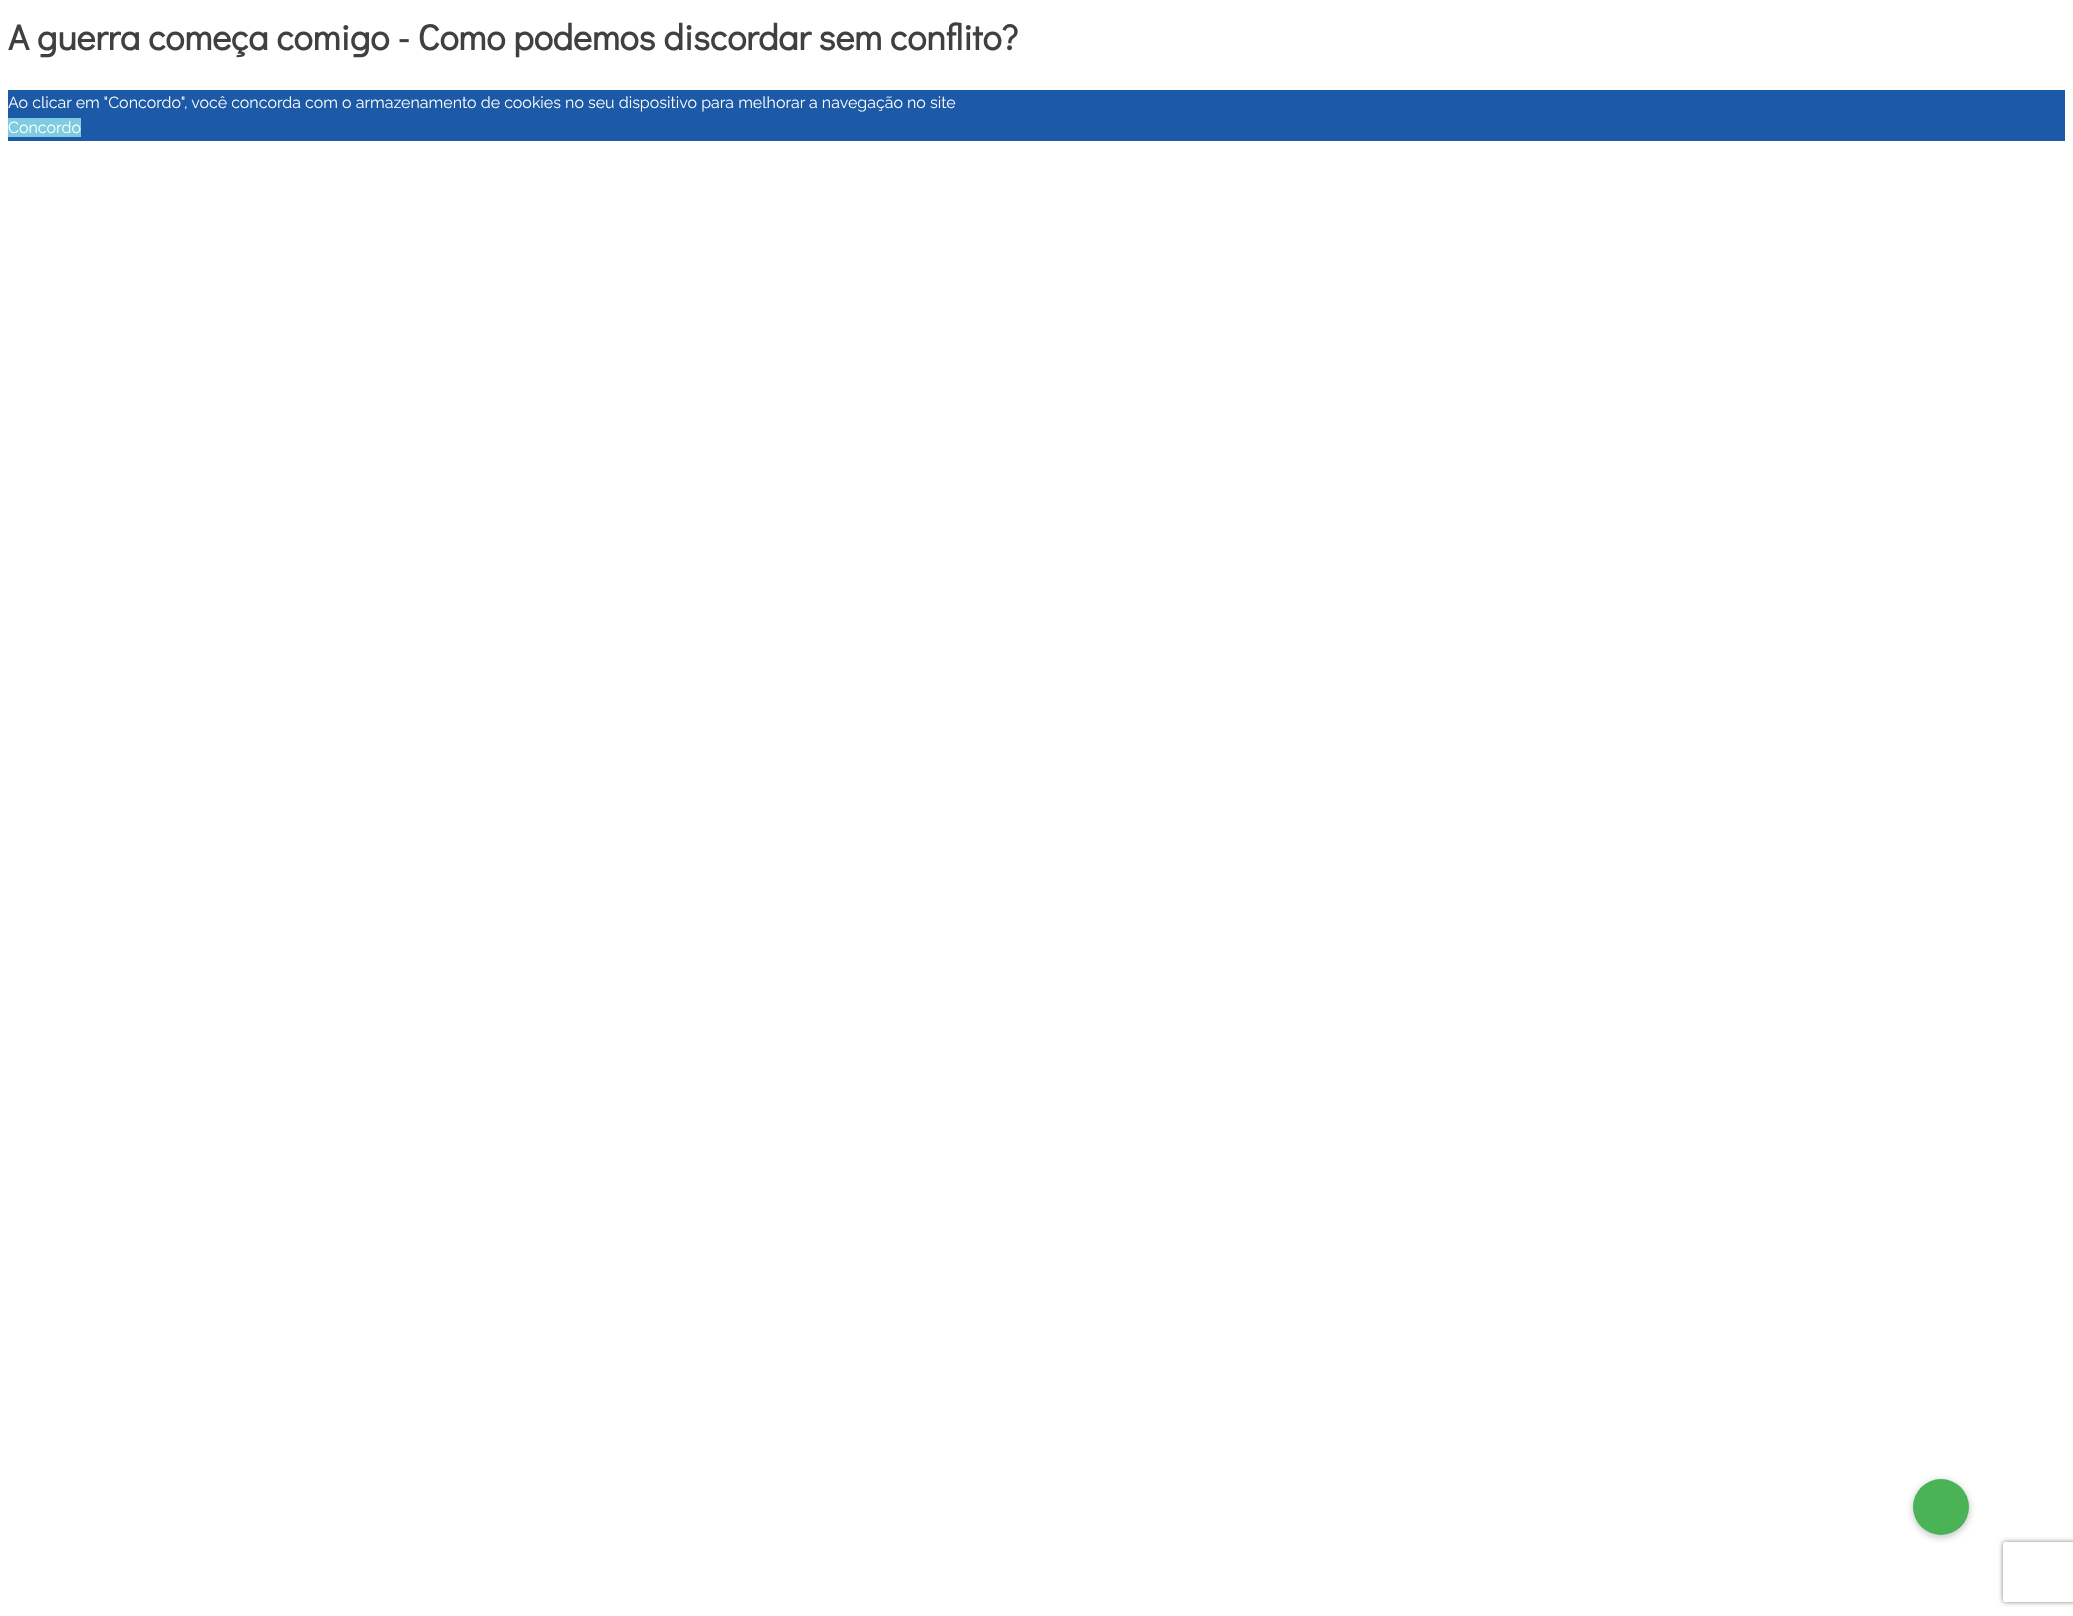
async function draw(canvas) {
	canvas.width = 2073;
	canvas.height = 1616;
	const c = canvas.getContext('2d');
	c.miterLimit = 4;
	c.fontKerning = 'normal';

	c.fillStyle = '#fff';
	c.fillRect(0, 0, 2073, 1616);
	c.font = 'bold 36px Didact Gothic';
	c.fillStyle = '#404040';
	c.fillText('A guerra começa comigo - Como podemos discordar sem conflito?', 8, 50);
	c.fillStyle = '#1c59a6';
	c.fillRect(8, 90, 2057, 51);
	c.font = '16px Raleway';
	c.fillStyle = '#fff';
	c.fillText('Ao clicar em "Concordo", você concorda com o armazenamento de cookies no seu dispositivo para melhorar a navegação no site', 8, 108);
	c.fillStyle = '#7fcce0';
	c.fillRect(8, 118, 73, 19);
	c.fillStyle = '#fff';
	c.fillText('Concordo', 8, 133);
	c.fillStyle = '#00000033';
	c.filter = 'blur(3px)';
	c.beginPath();
	c.roundRect(1912, 1480, 58, 58, 29);
	c.fill();
	c.filter = 'none';
	c.fillStyle = '#4ab356';
	c.beginPath();
	c.arc(1941, 1507, 28, 0, 2 * Math.PI);
	c.fill();
	c.save();
	c.beginPath();
	c.moveTo(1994, 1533);
	c.lineTo(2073, 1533);
	c.lineTo(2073, 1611);
	c.lineTo(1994, 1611);
	c.closePath();
	c.moveTo(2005, 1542);
	c.lineTo(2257, 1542);
	c.bezierCurveTo(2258, 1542, 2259, 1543, 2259, 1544);
	c.lineTo(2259, 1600);
	c.bezierCurveTo(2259, 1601, 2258, 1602, 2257, 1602);
	c.lineTo(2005, 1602);
	c.bezierCurveTo(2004, 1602, 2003, 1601, 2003, 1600);
	c.lineTo(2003, 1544);
	c.bezierCurveTo(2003, 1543, 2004, 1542, 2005, 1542);
	c.closePath();
	c.clip('evenodd');
	c.fillStyle = '#808080';
	c.filter = 'blur(2.5px)';
	c.beginPath();
	c.roundRect(2003, 1542, 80, 60, 2);
	c.fill();
	c.filter = 'none';
	c.restore();
}

draw(document.querySelector('canvas'));
